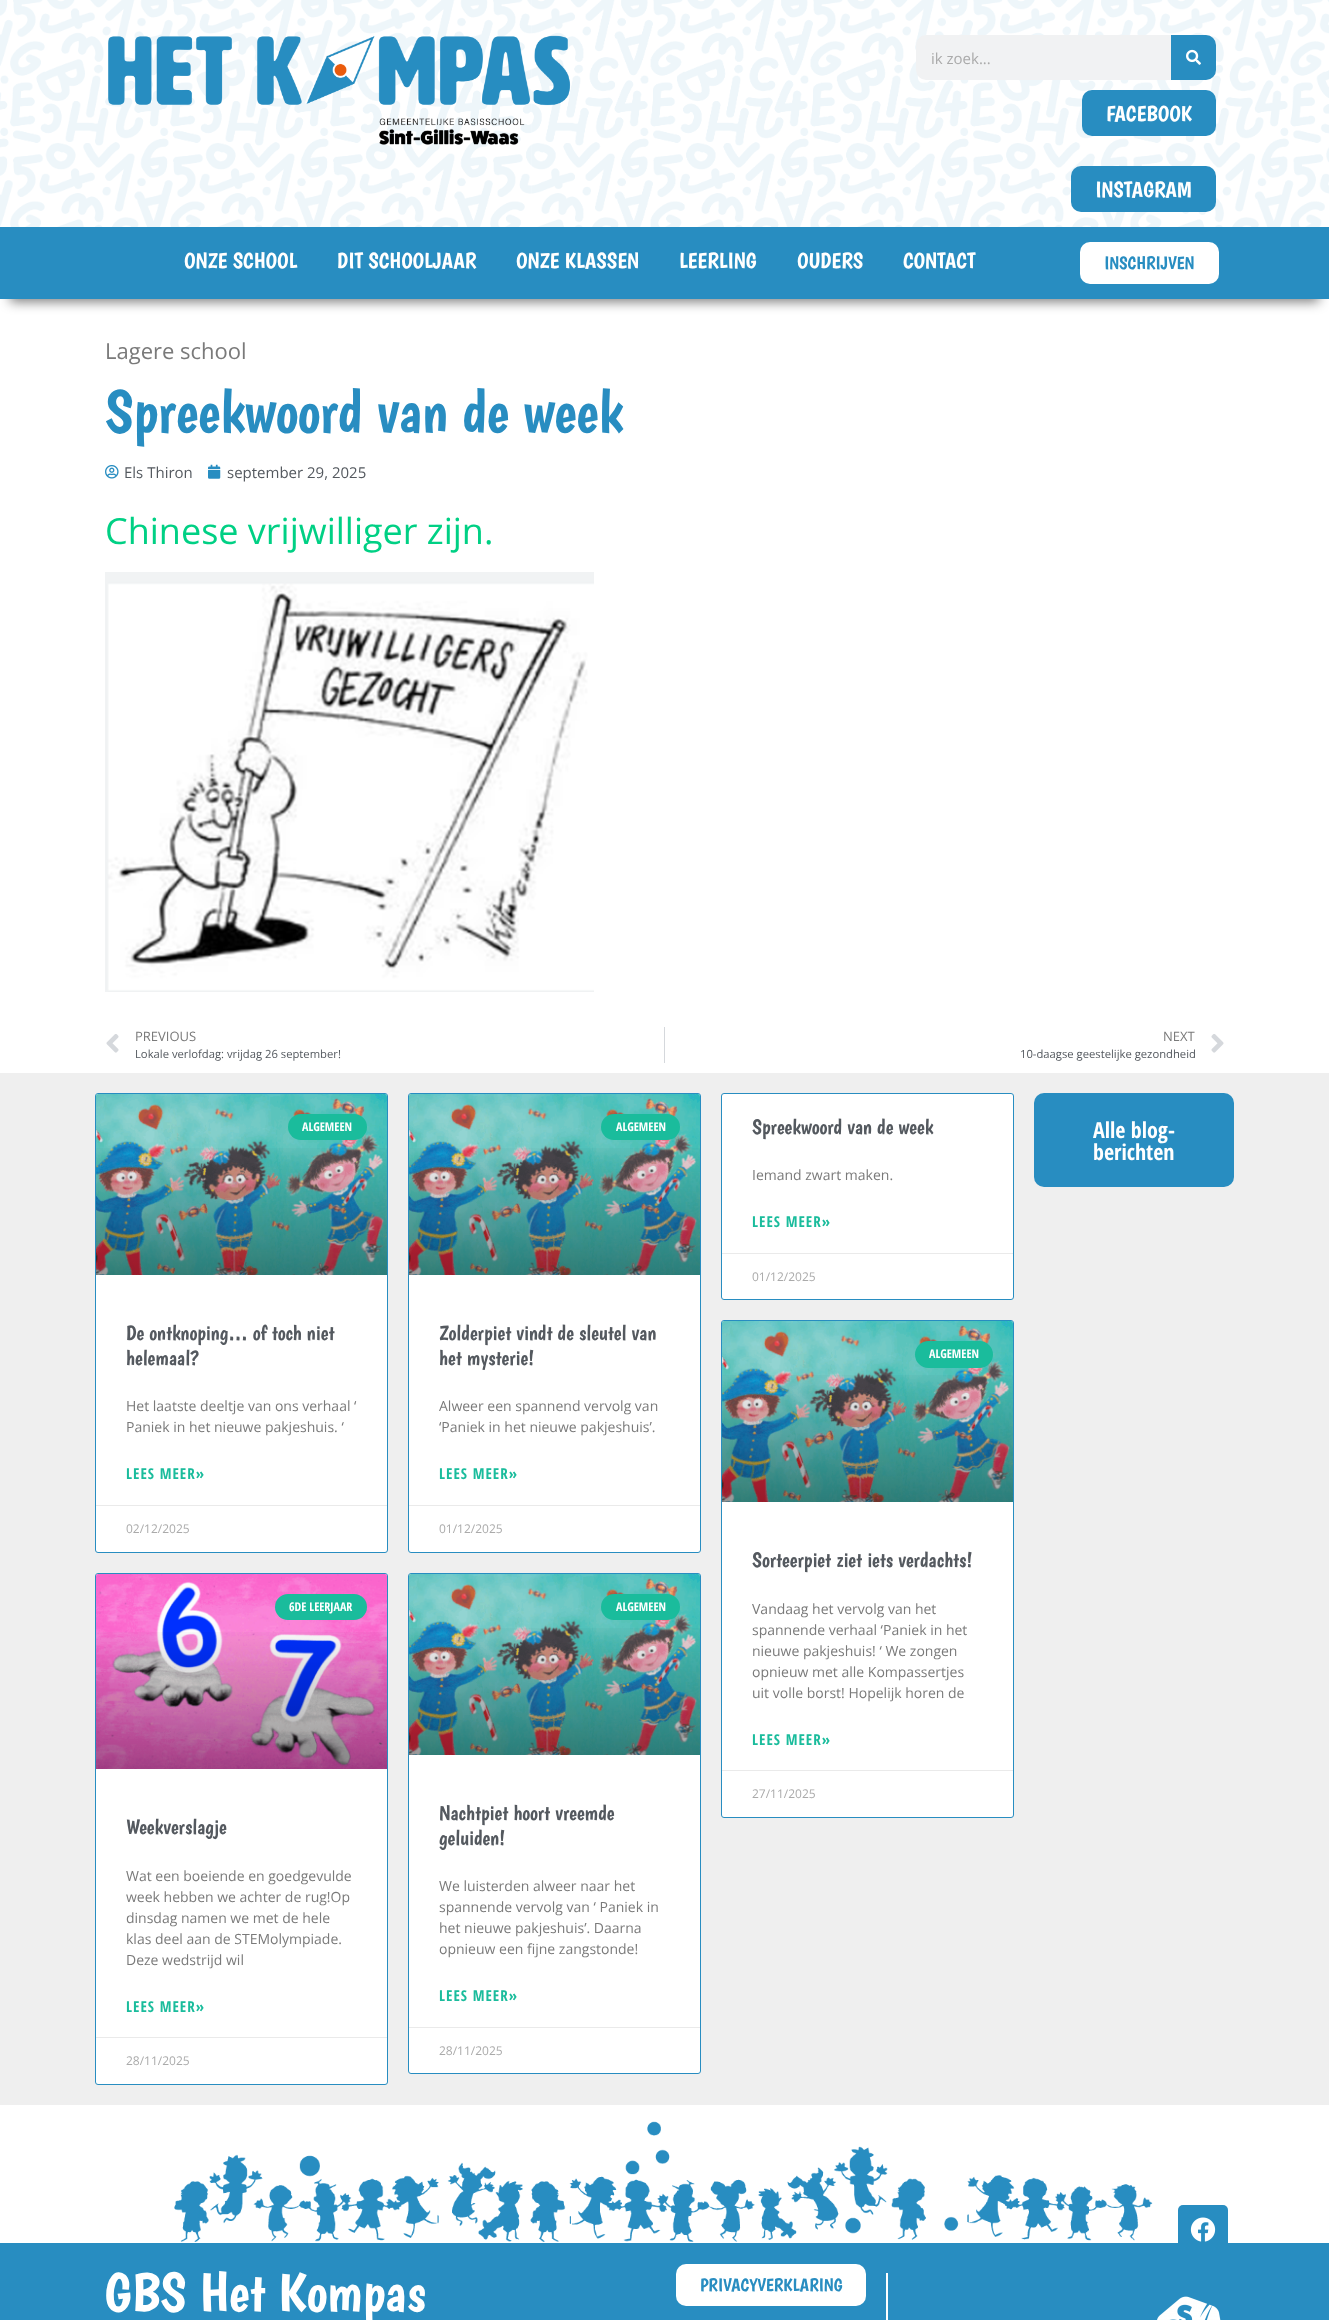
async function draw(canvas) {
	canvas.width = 1329;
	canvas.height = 2320;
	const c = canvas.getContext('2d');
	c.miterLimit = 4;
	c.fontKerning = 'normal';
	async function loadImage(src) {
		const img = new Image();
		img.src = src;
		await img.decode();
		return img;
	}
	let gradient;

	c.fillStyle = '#fff';
	c.fillRect(0, 0, 1329, 2320);
	c.drawImage(await loadImage('img1.png'), 0, 0, 1329, 227);
	c.drawImage(await loadImage('img2.png'), 108, 35, 463, 110);
	c.fillStyle = '#f1f2f3';
	c.beginPath();
	c.roundRect(916, 35, 300, 45, 10);
	c.fill();
	c.font = '15px Open Sans';
	c.fillStyle = '#aaa';
	c.fillText('ik zoek...', 931, 64);
	c.fillStyle = '#288dc1';
	c.beginPath();
	c.roundRect(1171, 35, 45, 45, [0, 10, 10, 0]);
	c.fill();
	c.drawImage(await loadImage('img3.png'), 1186, 49, 15, 16);
	c.beginPath();
	c.roundRect(1082, 90, 134, 46, 10);
	c.fill();
	c.font = '22px Boogaloo';
	c.fillStyle = '#fff';
	c.fillText('FACEBOOK', 1106, 121);
	c.fillStyle = '#288dc1';
	c.beginPath();
	c.roundRect(1071, 166, 145, 46, 10);
	c.fill();
	c.fillStyle = '#fff';
	c.fillText('INSTAGRAM', 1095, 197);
	c.fillStyle = '#00000080';
	c.filter = 'blur(6px)';
	c.beginPath();
	c.rect(10, 250, 1309, 52);
	c.fill();
	c.filter = 'none';
	c.fillStyle = '#288dc1';
	c.fillRect(0, 227, 1329, 72);
	c.fillStyle = '#fff';
	for (const [text, x, y] of [
		['ONZE SCHOOL', 184, 268],
		['DIT SCHOOLJAAR', 337, 268],
		['ONZE KLASSEN', 516, 268],
		['LEERLING', 679, 268],
		['OUDERS', 797, 268],
		['CONTACT', 903, 268],
	]) {
		c.fillText(text, x, y);
	}
	c.beginPath();
	c.roundRect(1080, 242, 139, 42, 10);
	c.fill();
	c.font = '18px Boogaloo';
	c.fillStyle = '#288dc1';
	c.fillText('INSCHRIJVEN', 1104, 269);
	c.font = '22px Open Sans';
	c.fillStyle = '#7a7a7a';
	c.fillText('Lagere school', 105, 359);
	c.font = '60px Boogaloo';
	c.fillStyle = '#288dc1';
	c.fillText('Spreekwoord van de week', 105, 432);
	c.drawImage(await loadImage('img4.png'), 105, 465, 14, 14);
	c.font = '15px Open Sans';
	c.fillStyle = '#54595f';
	c.fillText('Els Thiron', 124, 478);
	c.drawImage(await loadImage('img5.png'), 208, 464, 13, 15);
	c.fillText('september 29, 2025', 227, 478);
	c.font = '36px Open Sans';
	c.fillStyle = '#00d084';
	c.fillText('Chinese vrijwilliger zijn.', 105, 544);
	c.drawImage(await loadImage('img6.png'), 105, 572, 489, 420);
	c.drawImage(await loadImage('img7.png'), 106, 1034, 13, 19);
	c.font = '13px Open Sans';
	c.fillStyle = '#7a7a7a';
	c.fillText('PREVIOUS', 135, 1041);
	c.font = '11.25px Open Sans';
	c.fillStyle = '#54595f';
	c.fillText('Lokale verlofdag: vrijdag 26 september!', 135, 1058);
	c.fillStyle = '#d5d8dc';
	c.fillRect(664, 1027, 1, 36);
	c.font = '13px Open Sans';
	c.fillStyle = '#7a7a7a';
	c.fillText('NEXT', 1163, 1041);
	c.font = '11.25px Open Sans';
	c.fillStyle = '#54595f';
	c.fillText('10-daagse geestelijke gezondheid', 1020, 1058);
	c.drawImage(await loadImage('img8.png'), 1211, 1034, 13, 19);
	c.fillStyle = '#efefef';
	c.fillRect(0, 1073, 1329, 1032);
	c.fillStyle = '#fff';
	c.beginPath();
	c.roundRect(95.5, 1093.5, 292, 459, 2.5);
	c.fill();
	c.strokeStyle = '#288dc1';
	c.stroke();
	c.drawImage(await loadImage('img9.png'), 96, 1094, 291, 181);
	gradient = c.createLinearGradient(242, 1275, 242, 1094);
	gradient.addColorStop(0, '#00000059');
	gradient.addColorStop(0.75, '#00000000');
	c.fillStyle = gradient;
	c.fillRect(96, 1148, 291, 127);
	c.fillStyle = '#1abc9c';
	c.beginPath();
	c.roundRect(288, 1114, 79, 26, 13);
	c.fill();
	c.font = 'bold 12px Open Sans Condensed';
	c.fillStyle = '#fff';
	c.fillText('ALGEMEEN', 302, 1131);
	c.font = '21px Boogaloo';
	c.fillStyle = '#54595f';
	c.fillText('De ontknoping… of toch niet', 126, 1340);
	c.fillText('helemaal?', 126, 1365);
	c.font = '14px Open Sans';
	c.fillStyle = '#7a7a7a';
	c.fillText('Het laatste deeltje van ons verhaal ‘', 126, 1411);
	c.fillText('Paniek in het nieuwe pakjeshuis. ‘', 126, 1432);
	c.letterSpacing = '1px';
	c.font = 'bold 15px Open Sans Condensed';
	c.fillStyle = '#1abc9c';
	c.fillText('LEES MEER»', 126, 1479);
	c.fillStyle = '#eaeaea';
	c.fillRect(96, 1505, 291, 1);
	c.letterSpacing = '0px';
	c.font = '12px Open Sans';
	c.fillStyle = '#aaa';
	c.fillText('02/12/2025', 126, 1533);
	c.fillStyle = '#fff';
	c.beginPath();
	c.roundRect(408.5, 1093.5, 292, 459, 2.5);
	c.fill();
	c.stroke();
	c.drawImage(await loadImage('img10.png'), 409, 1094, 291, 181);
	gradient = c.createLinearGradient(555, 1275, 555, 1094);
	gradient.addColorStop(0, '#00000059');
	gradient.addColorStop(0.75, '#00000000');
	c.fillStyle = gradient;
	c.fillRect(409, 1148, 291, 127);
	c.fillStyle = '#1abc9c';
	c.beginPath();
	c.roundRect(601, 1114, 79, 26, 13);
	c.fill();
	c.font = 'bold 12px Open Sans Condensed';
	c.fillStyle = '#fff';
	c.fillText('ALGEMEEN', 616, 1131);
	c.font = '21px Boogaloo';
	c.fillStyle = '#54595f';
	c.fillText('Zolderpiet vindt de sleutel van', 439, 1340);
	c.fillText('het mysterie!', 439, 1365);
	c.font = '14px Open Sans';
	c.fillStyle = '#7a7a7a';
	c.fillText('Alweer een spannend vervolg van', 439, 1411);
	c.fillText('‘Paniek in het nieuwe pakjeshuis’.', 439, 1432);
	c.letterSpacing = '1px';
	c.font = 'bold 15px Open Sans Condensed';
	c.fillStyle = '#1abc9c';
	c.fillText('LEES MEER»', 439, 1479);
	c.fillStyle = '#eaeaea';
	c.fillRect(409, 1505, 291, 1);
	c.letterSpacing = '0px';
	c.font = '12px Open Sans';
	c.fillStyle = '#aaa';
	c.fillText('01/12/2025', 439, 1533);
	c.fillStyle = '#fff';
	c.beginPath();
	c.roundRect(721.5, 1093.5, 292, 206, 2.5);
	c.fill();
	c.stroke();
	c.font = '21px Boogaloo';
	c.fillStyle = '#54595f';
	c.fillText('Spreekwoord van de week', 752, 1134);
	c.font = '14px Open Sans';
	c.fillStyle = '#7a7a7a';
	c.fillText('Iemand zwart maken.', 752, 1180);
	c.letterSpacing = '1px';
	c.font = 'bold 15px Open Sans Condensed';
	c.fillStyle = '#1abc9c';
	c.fillText('LEES MEER»', 752, 1227);
	c.fillStyle = '#eaeaea';
	c.fillRect(722, 1253, 291, 1);
	c.letterSpacing = '0px';
	c.font = '12px Open Sans';
	c.fillStyle = '#aaa';
	c.fillText('01/12/2025', 752, 1281);
	c.fillStyle = '#fff';
	c.beginPath();
	c.roundRect(95.5, 1573.5, 292, 511, 2.5);
	c.fill();
	c.stroke();
	c.drawImage(await loadImage('img11.png'), 96, 1574, 291, 195);
	gradient = c.createLinearGradient(242, 1769, 242, 1574);
	gradient.addColorStop(0, '#00000059');
	gradient.addColorStop(0.75, '#00000000');
	c.fillStyle = gradient;
	c.fillRect(96, 1632, 291, 137);
	c.fillStyle = '#1abc9c';
	c.beginPath();
	c.roundRect(275, 1594, 92, 26, 13);
	c.fill();
	c.font = 'bold 12px Open Sans Condensed';
	c.fillStyle = '#fff';
	c.fillText('6DE LEERJAAR', 289, 1611);
	c.font = '21px Boogaloo';
	c.fillStyle = '#54595f';
	c.fillText('Weekverslagje', 126, 1834);
	c.font = '14px Open Sans';
	c.fillStyle = '#7a7a7a';
	for (const [text, x, y] of [
		['Wat een boeiende en goedgevulde', 126, 1881],
		['week hebben we achter de rug!Op', 126, 1902],
		['dinsdag namen we met de hele', 126, 1923],
		['klas deel aan de STEMolympiade.', 126, 1944],
		['Deze wedstrijd wil', 126, 1965],
	]) {
		c.fillText(text, x, y);
	}
	c.letterSpacing = '1px';
	c.font = 'bold 15px Open Sans Condensed';
	c.fillStyle = '#1abc9c';
	c.fillText('LEES MEER»', 126, 2012);
	c.fillStyle = '#eaeaea';
	c.fillRect(96, 2037, 291, 1);
	c.letterSpacing = '0px';
	c.font = '12px Open Sans';
	c.fillStyle = '#aaa';
	c.fillText('28/11/2025', 126, 2065);
	c.fillStyle = '#fff';
	c.beginPath();
	c.roundRect(408.5, 1573.5, 292, 500, 2.5);
	c.fill();
	c.stroke();
	c.drawImage(await loadImage('img10.png'), 409, 1574, 291, 181);
	gradient = c.createLinearGradient(555, 1755, 555, 1574);
	gradient.addColorStop(0, '#00000059');
	gradient.addColorStop(0.75, '#00000000');
	c.fillStyle = gradient;
	c.fillRect(409, 1628, 291, 127);
	c.fillStyle = '#1abc9c';
	c.beginPath();
	c.roundRect(601, 1594, 79, 26, 13);
	c.fill();
	c.font = 'bold 12px Open Sans Condensed';
	c.fillStyle = '#fff';
	c.fillText('ALGEMEEN', 616, 1611);
	c.font = '21px Boogaloo';
	c.fillStyle = '#54595f';
	c.fillText('Nachtpiet hoort vreemde', 439, 1820);
	c.fillText('geluiden!', 439, 1845);
	c.font = '14px Open Sans';
	c.fillStyle = '#7a7a7a';
	for (const [text, x, y] of [
		['We luisterden alweer naar het', 439, 1891],
		['spannende vervolg van ‘ Paniek in', 439, 1912],
		['het nieuwe pakjeshuis’. Daarna', 439, 1933],
		['opnieuw een fijne zangstonde!', 439, 1954],
	]) {
		c.fillText(text, x, y);
	}
	c.letterSpacing = '1px';
	c.font = 'bold 15px Open Sans Condensed';
	c.fillStyle = '#1abc9c';
	c.fillText('LEES MEER»', 439, 2001);
	c.fillStyle = '#eaeaea';
	c.fillRect(409, 2027, 291, 1);
	c.letterSpacing = '0px';
	c.font = '12px Open Sans';
	c.fillStyle = '#aaa';
	c.fillText('28/11/2025', 439, 2055);
	c.fillStyle = '#fff';
	c.beginPath();
	c.roundRect(721.5, 1320.5, 292, 497, 2.5);
	c.fill();
	c.stroke();
	c.drawImage(await loadImage('img12.png'), 722, 1321, 291, 181);
	gradient = c.createLinearGradient(868, 1502, 868, 1321);
	gradient.addColorStop(0, '#00000059');
	gradient.addColorStop(0.75, '#00000000');
	c.fillStyle = gradient;
	c.fillRect(722, 1375, 291, 127);
	c.fillStyle = '#1abc9c';
	c.beginPath();
	c.roundRect(915, 1341, 78, 27, 13.5);
	c.fill();
	c.font = 'bold 12px Open Sans Condensed';
	c.fillStyle = '#fff';
	c.fillText('ALGEMEEN', 929, 1358);
	c.font = '21px Boogaloo';
	c.fillStyle = '#54595f';
	c.fillText('Sorteerpiet ziet iets verdachts!', 752, 1567);
	c.font = '14px Open Sans';
	c.fillStyle = '#7a7a7a';
	for (const [text, x, y] of [
		['Vandaag het vervolg van het', 752, 1614],
		['spannende verhaal ‘Paniek in het', 752, 1635],
		['nieuwe pakjeshuis! ‘ We zongen', 752, 1656],
		['opnieuw met alle Kompassertjes', 752, 1677],
		['uit volle borst! Hopelijk horen de', 752, 1698],
	]) {
		c.fillText(text, x, y);
	}
	c.letterSpacing = '1px';
	c.font = 'bold 15px Open Sans Condensed';
	c.fillStyle = '#1abc9c';
	c.fillText('LEES MEER»', 752, 1745);
	c.fillStyle = '#eaeaea';
	c.fillRect(722, 1770, 291, 1);
	c.letterSpacing = '0px';
	c.font = '12px Open Sans';
	c.fillStyle = '#aaa';
	c.fillText('27/11/2025', 752, 1798);
	c.fillStyle = '#288dc1';
	c.beginPath();
	c.roundRect(1034, 1093, 200, 94, 10);
	c.fill();
	c.font = 'bold 22px Open Sans Condensed';
	c.fillStyle = '#fff';
	c.fillText('Alle blog-', 1093, 1138);
	c.fillText('berichten', 1093, 1160);
	c.drawImage(await loadImage('img13.png'), 174, 2121, 979, 121);
	c.fillStyle = '#288dc1';
	c.beginPath();
	c.roundRect(1178, 2205, 50, 50, 5);
	c.fill();
	c.drawImage(await loadImage('img14.png'), 1190, 2217, 26, 25);
	c.fillRect(0, 2243, 1329, 77);
	c.font = '55px Boogaloo';
	c.fillStyle = '#fff';
	c.fillText('GBS Het Kompas', 104, 2311);
	c.beginPath();
	c.roundRect(676, 2264, 190, 42, 10);
	c.fill();
	c.font = '18px Boogaloo';
	c.fillStyle = '#288dc1';
	c.fillText('PRIVACYVERKLARING', 700, 2291);
	c.fillStyle = '#fff';
	c.fillRect(886, 2273, 2, 47);
	c.drawImage(await loadImage('img15.png'), 1157, 2296, 64, 24);
}

draw(document.querySelector('canvas'));
